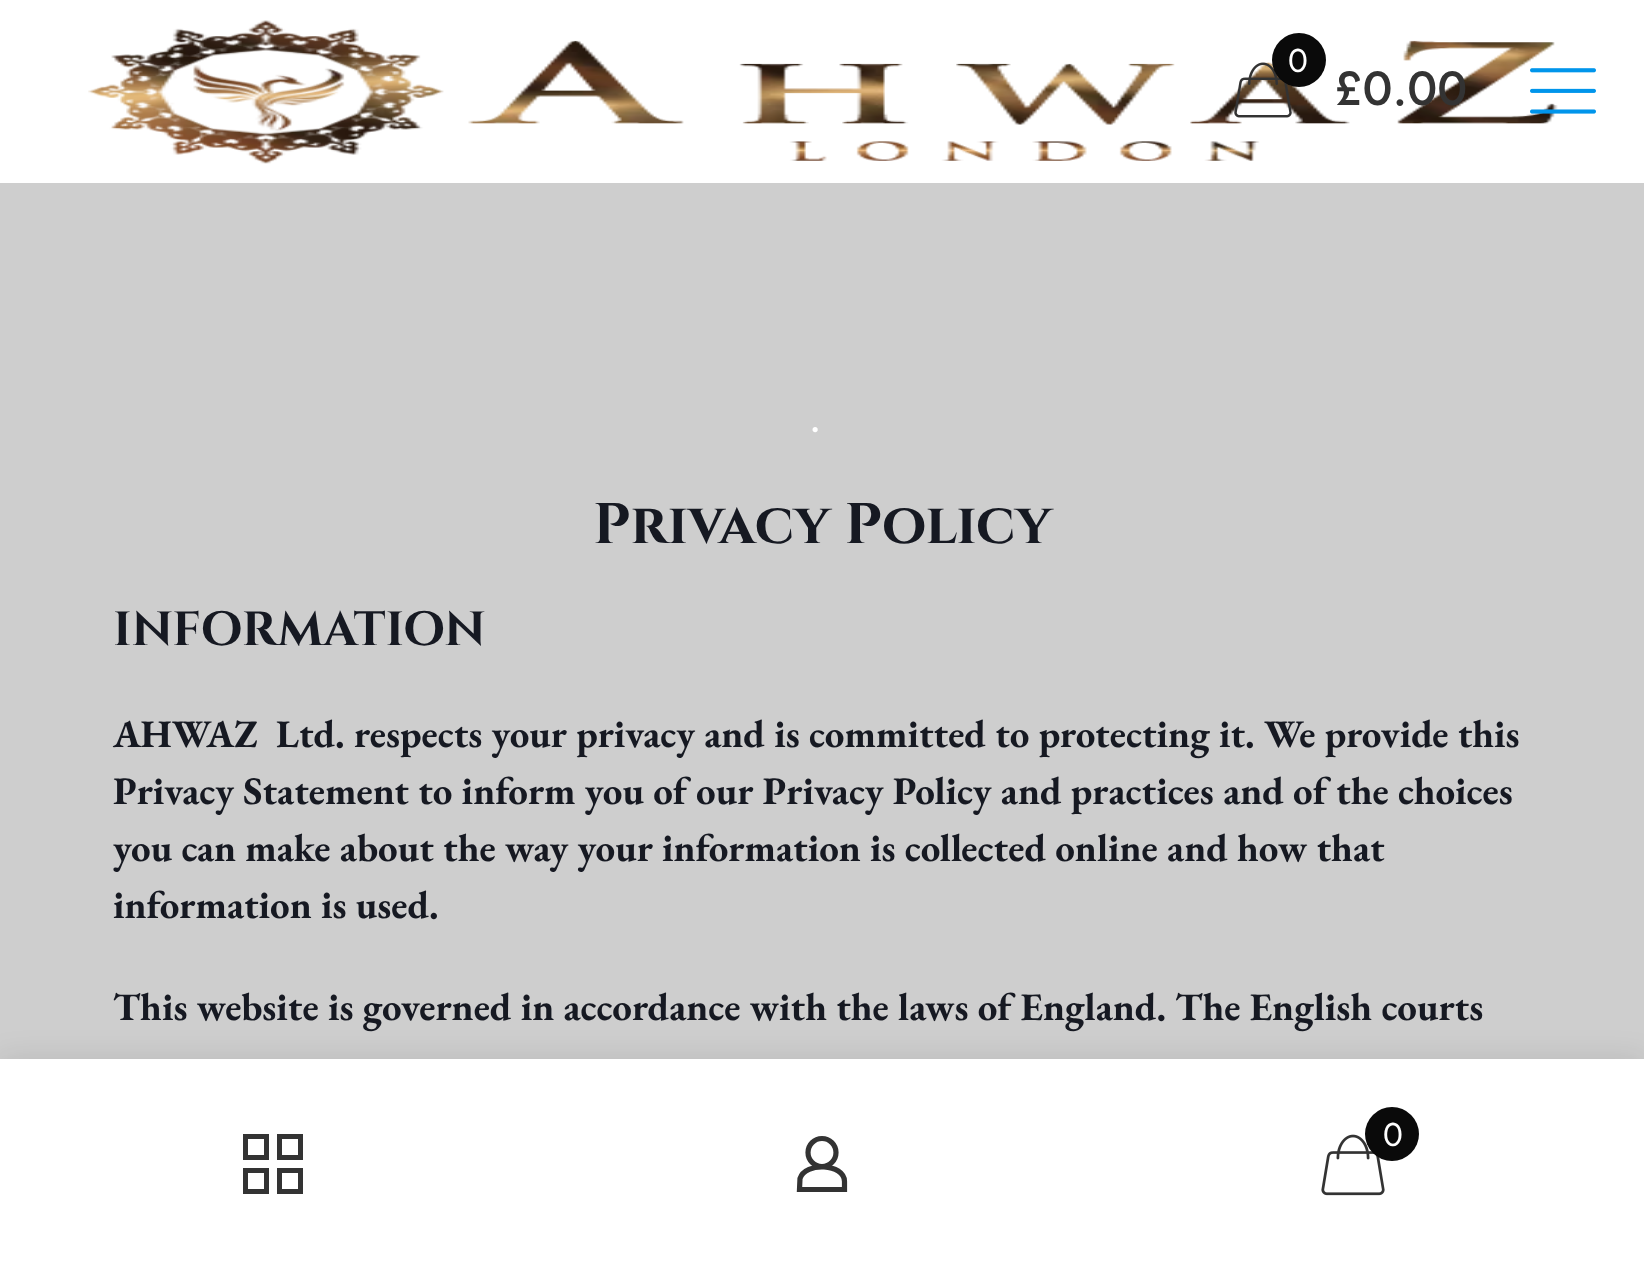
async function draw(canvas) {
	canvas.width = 1644;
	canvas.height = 1267;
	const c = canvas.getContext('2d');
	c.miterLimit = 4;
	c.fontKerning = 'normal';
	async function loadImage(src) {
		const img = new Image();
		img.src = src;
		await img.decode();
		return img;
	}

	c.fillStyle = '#cecece';
	c.fillRect(0, 0, 1644, 1267);
	c.fillStyle = '#fff';
	c.fillRect(0, 0, 1644, 183);
	c.drawImage(await loadImage('img1.png'), 88, 20, 1470, 144);
	c.drawImage(await loadImage('img2.png'), 1530, 68, 66, 46);
	c.drawImage(await loadImage('img3.png'), 1234, 62, 58, 56);
	c.fillStyle = '#0a0a0a';
	c.beginPath();
	c.arc(1299, 60, 27, 0, 2 * Math.PI);
	c.fill();
	c.font = '33px Jost';
	c.fillStyle = '#fff';
	c.fillText('0', 1288, 72);
	c.font = '500 48px Jost';
	c.fillStyle = '#333';
	c.fillText('£0.00', 1334, 105);
	c.font = '57px Cinzel';
	c.fillStyle = '#fff';
	c.fillText('.', 810, 432);
	c.font = 'bold 57px Cinzel';
	c.fillStyle = '#161922';
	c.fillText('Privacy Policy', 593, 543);
	c.font = 'bold 48px Cinzel';
	c.fillText('INFORMATION', 113, 645);
	c.font = 'bold 39px EB Garamond';
	for (const [text, x, y] of [
		['AHWAZ  Ltd. respects your privacy and is committed to protecting it. We provide this', 113, 747],
		['Privacy Statement to inform you of our Privacy Policy and practices and of the choices', 113, 804],
		['you can make about the way your information is collected online and how that', 113, 861],
		['information is used.', 113, 918],
		['This website is governed in accordance with the laws of England. The English courts', 113, 1020],
	]) {
		c.fillText(text, x, y);
	}
	c.fillStyle = '#0000001a';
	c.filter = 'blur(15px)';
	c.beginPath();
	c.rect(0, 1059, 1644, 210);
	c.fill();
	c.filter = 'none';
	c.fillStyle = '#fff';
	c.fillRect(0, 1059, 1644, 208);
	c.strokeStyle = '#333';
	c.lineWidth = 5;
	c.strokeRect(279.5, 1136.5, 21, 21);
	c.strokeRect(245.5, 1136.5, 21, 21);
	c.strokeRect(245.5, 1170.5, 21, 21);
	c.strokeRect(279.5, 1170.5, 21, 21);
	c.beginPath();
	c.arc(822, 1152.5, 14, 0, 2 * Math.PI);
	c.lineWidth = 5.2;
	c.stroke();
	c.beginPath();
	c.moveTo(844.5, 1181.5);
	c.lineTo(844.5, 1189.5);
	c.lineTo(799.5, 1189.5);
	c.lineTo(800, 1178.5);
	c.bezierCurveTo(805, 1161.5, 844.5, 1163.5, 844.5, 1181.5);
	c.closePath();
	c.stroke();
	c.drawImage(await loadImage('img4.png'), 1321, 1134, 64, 62);
	c.fillStyle = '#0a0a0a';
	c.beginPath();
	c.arc(1392, 1134, 27, 0, 2 * Math.PI);
	c.fill();
	c.font = '33px Jost';
	c.fillStyle = '#fff';
	c.fillText('0', 1383, 1146);
}

draw(document.querySelector('canvas'));
